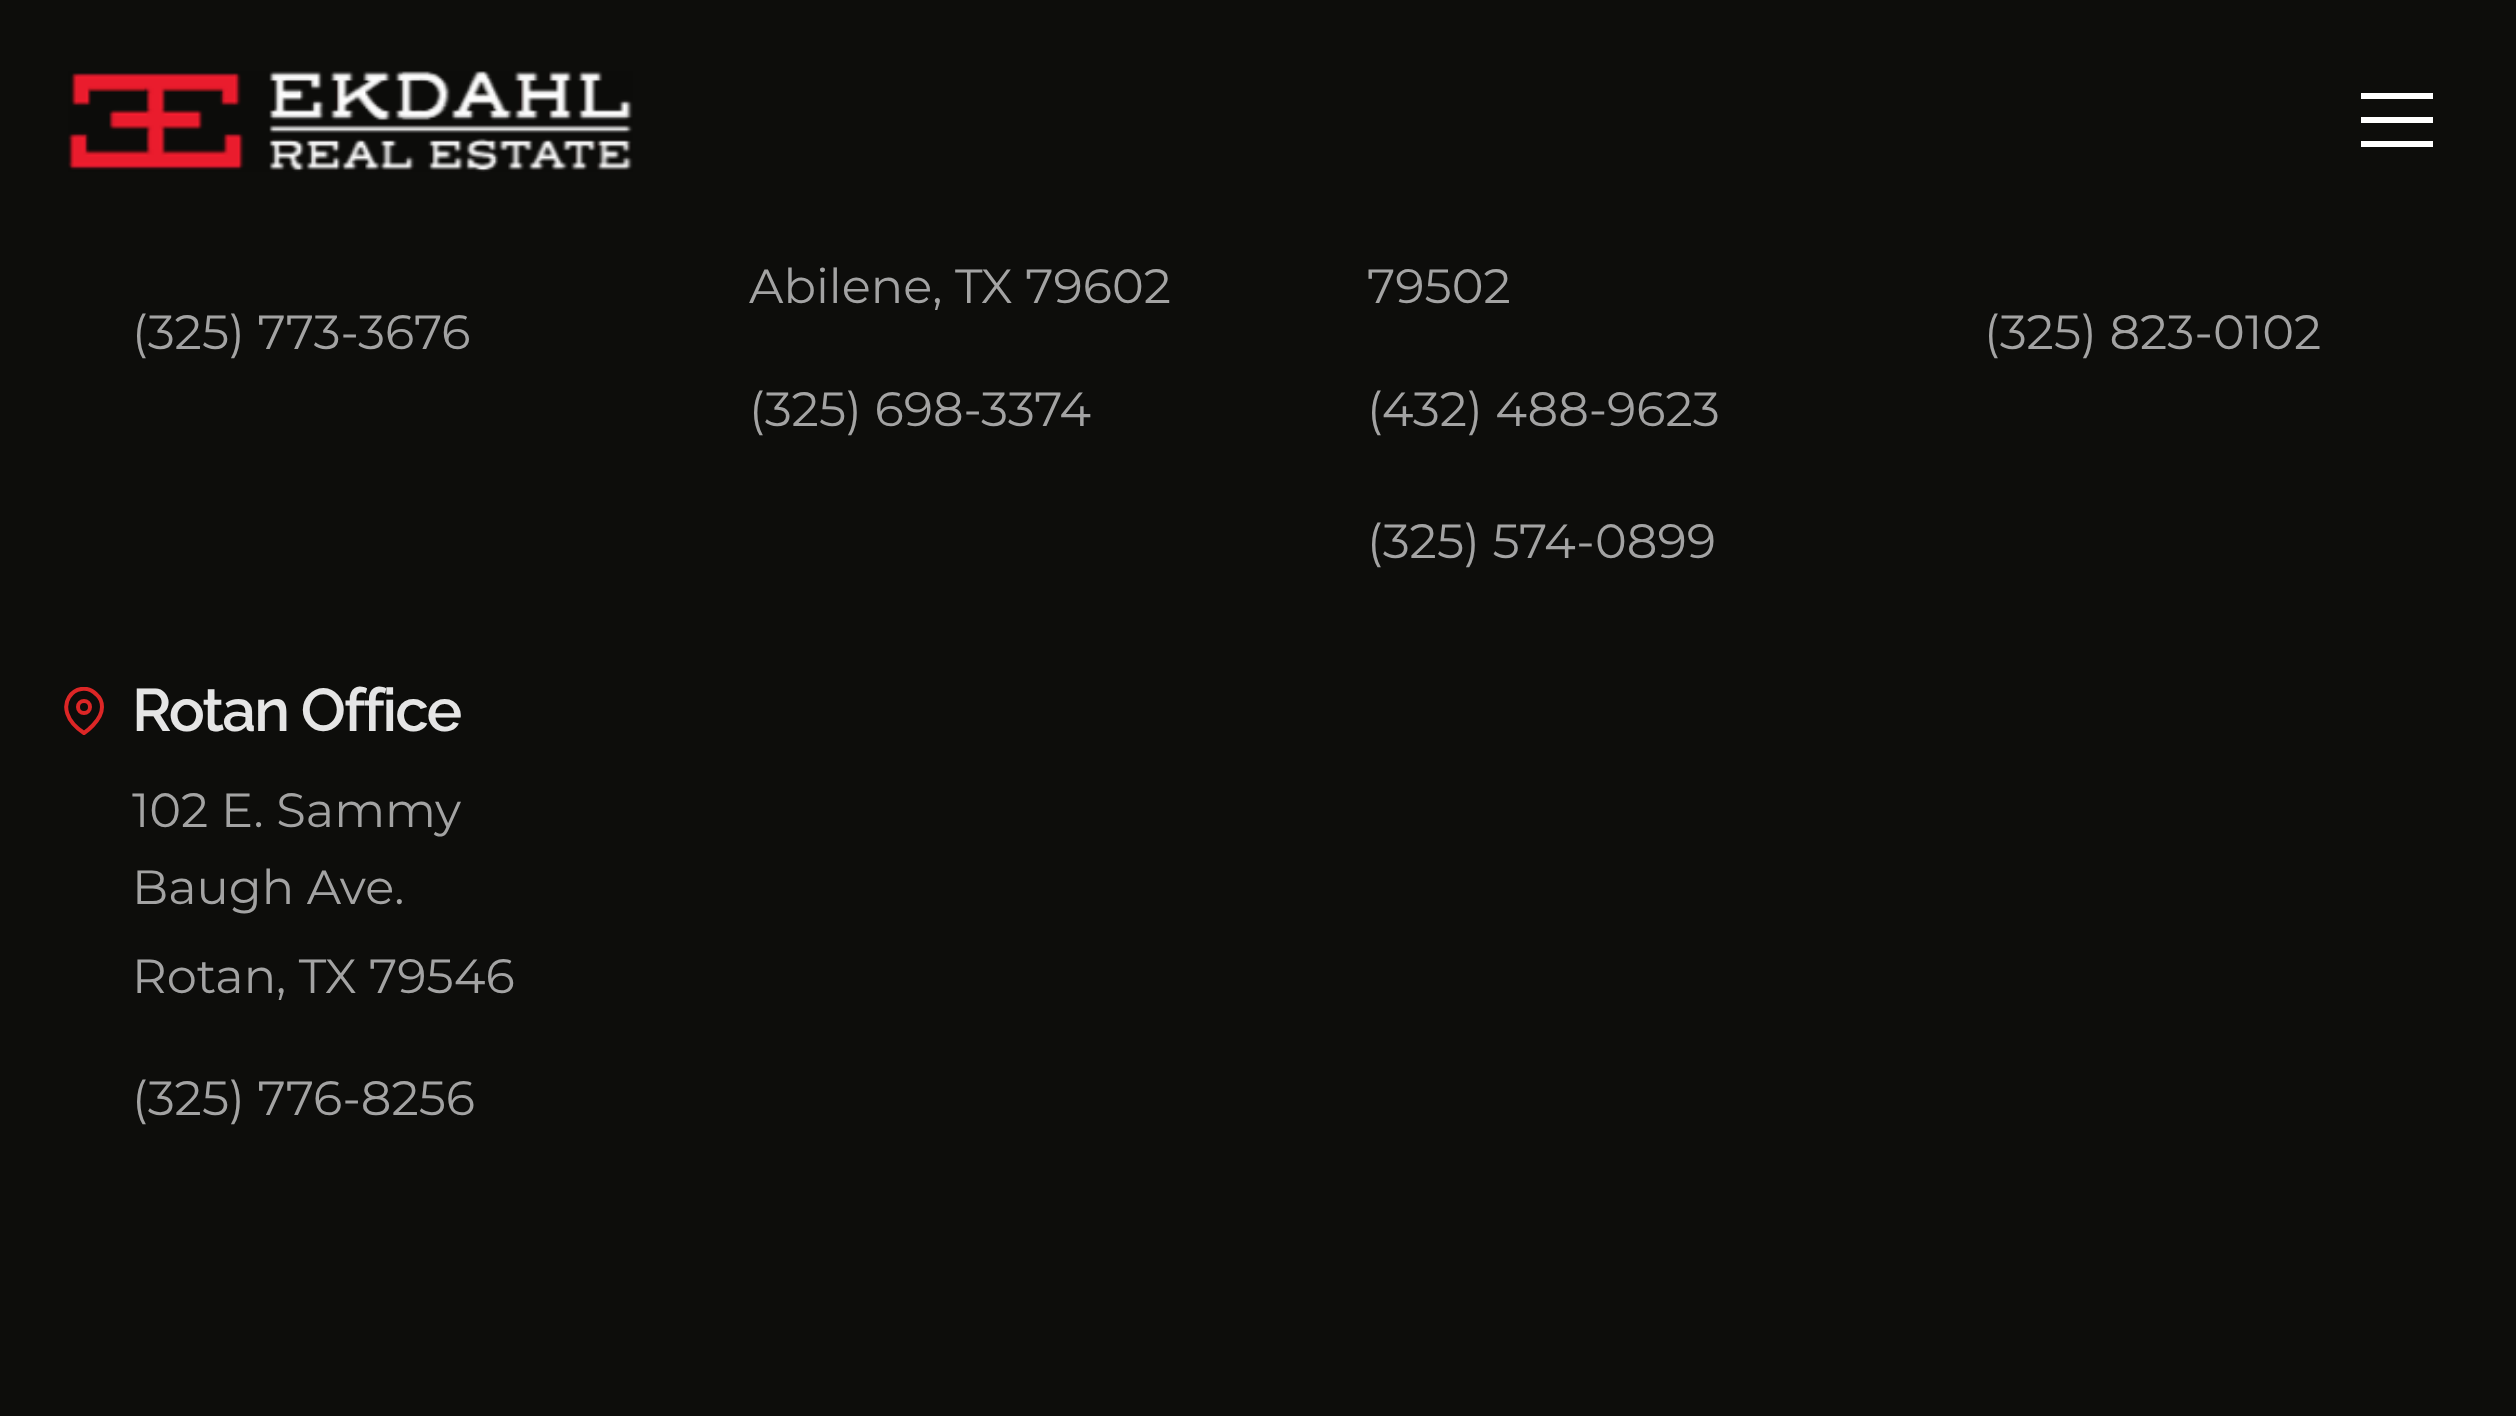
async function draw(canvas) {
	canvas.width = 2516;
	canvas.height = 1416;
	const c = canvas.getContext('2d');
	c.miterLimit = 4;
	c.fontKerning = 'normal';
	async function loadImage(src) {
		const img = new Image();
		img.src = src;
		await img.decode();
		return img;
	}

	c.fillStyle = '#0d0d0b';
	c.fillRect(0, 0, 2516, 1416);
	c.drawImage(await loadImage('img1.png'), 68, 71, 565, 101);
	for (const [x, y, w, h, color] of [
		[2361, 93, 72, 6, '#fff'],
		[2361, 117, 72, 6, '#fff'],
		[2361, 141, 72, 6, '#fff'],
	]) {
		c.fillStyle = color;
		c.fillRect(x, y, w, h);
	}
	c.font = '48px Montserrat';
	c.fillStyle = '#a3a3a3';
	for (const [text, x, y] of [
		['(325) 773-3676', 132, 349],
		['Abilene, TX 79602', 749, 303],
		['(325) 698-3374', 749, 426],
		['79502', 1367, 303],
		['(432) 488-9623', 1367, 426],
		['(325) 574-0899', 1367, 558],
		['(325) 823-0102', 1984, 349],
	]) {
		c.fillText(text, x, y);
	}
	c.save();
	c.beginPath();
	c.rect(60, 687, 48, 48);
	c.clip();
	c.beginPath();
	c.moveTo(102, 707);
	c.bezierCurveTo(102, 721, 84, 733, 84, 733);
	c.bezierCurveTo(46, 707.5, 78, 675.5, 96.5, 694.5);
	c.bezierCurveTo(100, 697.5, 102, 702, 102, 707);
	c.closePath();
	c.strokeStyle = '#dc2626';
	c.lineWidth = 4;
	c.lineCap = 'round';
	c.lineJoin = 'round';
	c.stroke();
	c.restore();
	c.beginPath();
	c.arc(84, 707, 6, 0, 2 * Math.PI);
	c.strokeStyle = '#dc2626';
	c.lineWidth = 4;
	c.stroke();
	c.letterSpacing = '-2px';
	c.font = '600 60px Raleway';
	c.fillStyle = '#e5e5e5';
	c.fillText('Rotan Office', 132, 731);
	c.letterSpacing = '0px';
	c.font = '48px Montserrat';
	c.fillStyle = '#a3a3a3';
	for (const [text, x, y] of [
		['102 E. Sammy', 132, 827],
		['Baugh Ave.', 132, 904],
		['Rotan, TX 79546', 132, 993],
		['(325) 776-8256', 132, 1115],
	]) {
		c.fillText(text, x, y);
	}
}

draw(document.querySelector('canvas'));
